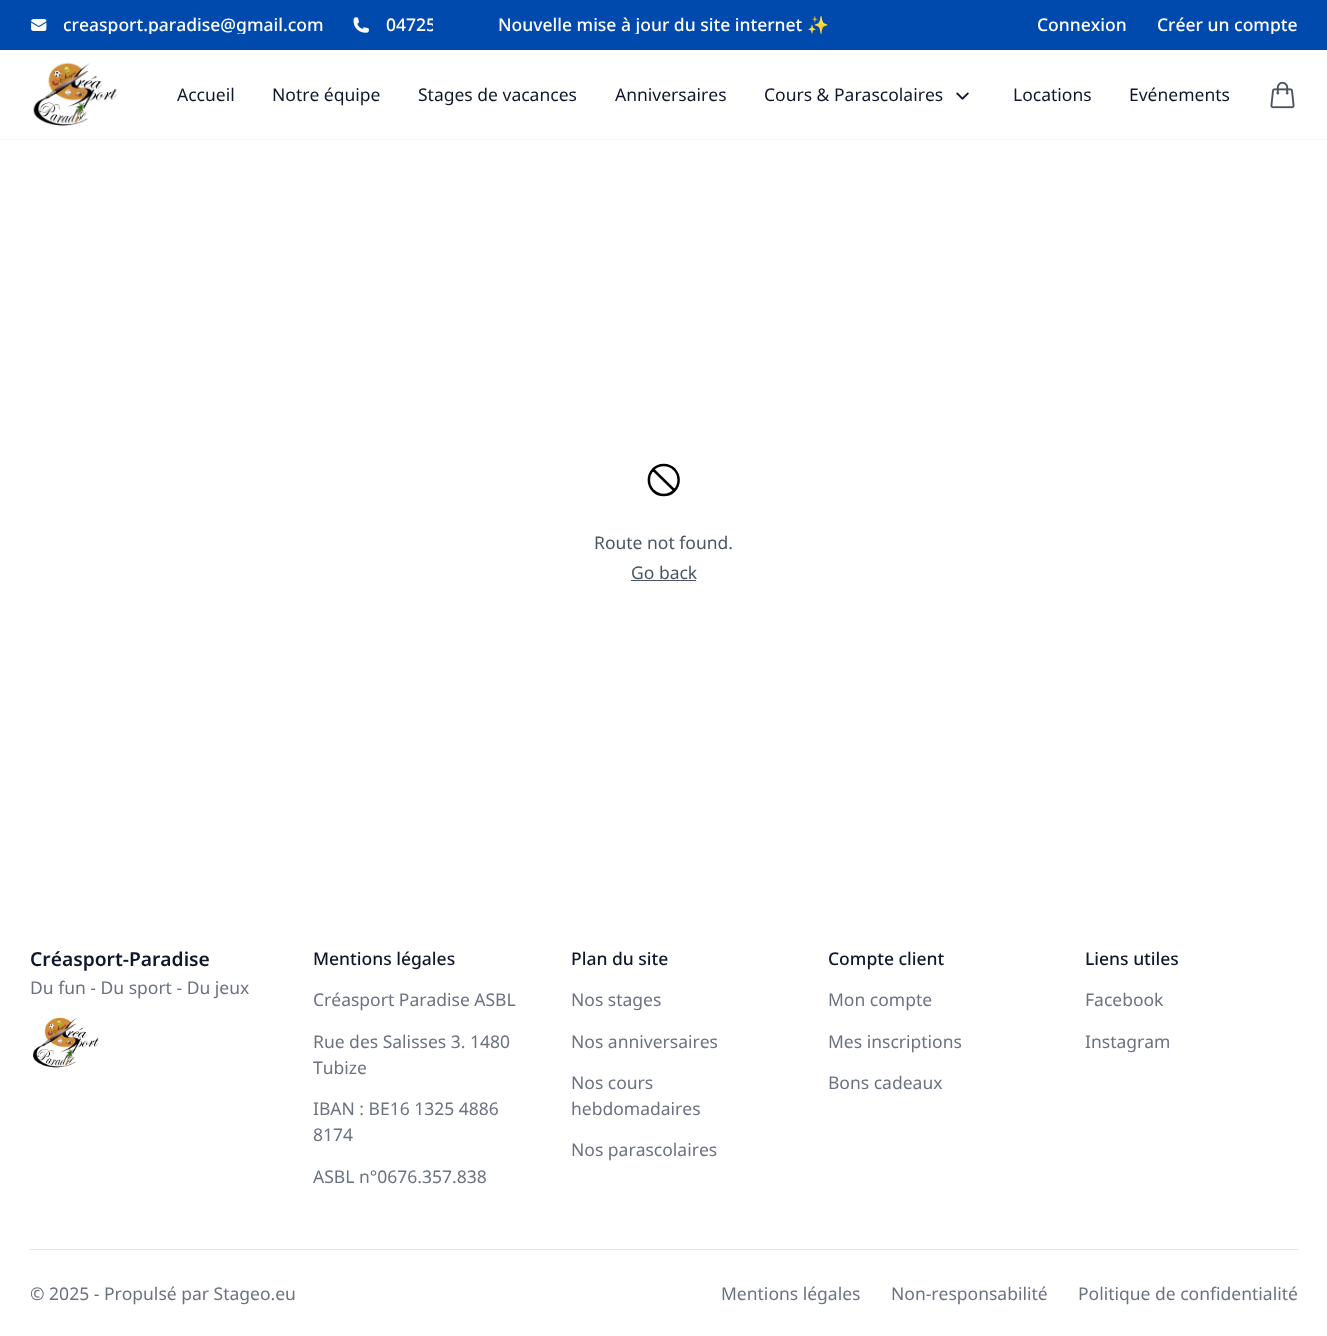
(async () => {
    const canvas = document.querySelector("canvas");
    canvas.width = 1327;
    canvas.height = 1336;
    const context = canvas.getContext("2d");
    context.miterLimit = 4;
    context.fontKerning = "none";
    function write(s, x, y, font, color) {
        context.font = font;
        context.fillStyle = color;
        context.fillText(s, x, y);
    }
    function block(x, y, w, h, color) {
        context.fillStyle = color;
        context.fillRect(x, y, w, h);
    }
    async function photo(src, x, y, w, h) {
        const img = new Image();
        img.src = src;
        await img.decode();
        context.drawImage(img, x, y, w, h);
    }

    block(0, 0, 1327, 1336, "rgb(255, 255, 255)");
    block(0, 0, 1327, 50, "rgb(0, 74, 173)");
    await photo("media/1.png", 31, 19, 16, 12);
    context.save();
    context.beginPath();
    context.rect(30, 16, 403, 18);
    context.clip();
    write("creasport.paradise@gmail.com", 63, 31, "500 17.5px Noto Sans", "rgb(255, 255, 255)");
    context.restore();
    await photo("media/2.png", 353, 17, 16, 16);
    context.save();
    context.beginPath();
    context.rect(30, 16, 403, 18);
    context.clip();
    write("04725", 386, 31, "500 17.5px Noto Sans", "rgb(255, 255, 255)");
    context.restore();
    context.save();
    context.beginPath();
    context.rect(499, 16, 330, 18);
    context.clip();
    write("Nouvelle mise à jour du site internet", 498, 31, "500 17.5px Noto Sans", "rgb(255, 255, 255)");
    write("✨", 807, 31, "17.5px Noto Color Emoji", "rgb(255, 255, 255)");
    context.restore();
    write("Connexion", 1037, 31, "500 17.5px Noto Sans", "rgb(255, 255, 255)");
    context.save();
    context.beginPath();
    context.rect(895, 16, 403, 18);
    context.clip();
    write("Créer un compte", 1157, 31, "500 17.5px Noto Sans", "rgb(255, 255, 255)");
    context.restore();
    block(0, 139, 1327, 1, "rgb(243, 244, 246)");
    await photo("media/3.png", 33, 62, 84, 64);
    write("Accueil", 177, 101, "17.5px Noto Sans", "rgb(15, 23, 42)");
    write("Notre équipe", 272, 101, "17.5px Noto Sans", "rgb(15, 23, 42)");
    write("Stages de vacances", 418, 101, "17.5px Noto Sans", "rgb(15, 23, 42)");
    write("Anniversaires", 615, 101, "17.5px Noto Sans", "rgb(15, 23, 42)");
    write("Cours & Parascolaires", 764, 101, "17.5px Noto Sans", "rgb(15, 23, 42)");
    await photo("media/4.png", 956, 92, 13, 8);
    write("Locations", 1013, 101, "17.5px Noto Sans", "rgb(15, 23, 42)");
    write("Evénements", 1129, 101, "17.5px Noto Sans", "rgb(15, 23, 42)");
    await photo("media/5.png", 1270, 81, 25, 28);
    context.beginPath();
    context.moveTo(674.5, 490.5);
    context.bezierCurveTo(680, 484.5, 680, 475.5, 674.5, 469.5);
    context.bezierCurveTo(668.5, 463.5, 659, 463.5, 653, 469.5);
    context.moveTo(674.5, 490.5);
    context.bezierCurveTo(668.5, 496.5, 659, 496.5, 653, 490.5);
    context.bezierCurveTo(647.5, 484.5, 647.5, 475.5, 653, 469.5);
    context.moveTo(674.5, 490.5);
    context.lineTo(653, 469.5);
    context.strokeStyle = "rgb(0, 0, 0)";
    context.lineWidth = 2.5;
    context.lineCap = "round";
    context.lineJoin = "round";
    context.stroke();
    write("Route not found.", 594, 549, "17.5px Noto Sans", "rgb(75, 85, 99)");
    write("Go back", 631, 579, "17.5px Noto Sans", "rgb(75, 85, 99)");
    block(631, 580, 65, 1, "rgb(75, 85, 99)");
    write("Créasport-Paradise", 30, 966, "600 19.25px Noto Sans", "rgb(15, 23, 42)");
    write("Du fun - Du sport - Du jeux", 30, 994, "17.5px Noto Sans", "rgb(107, 114, 128)");
    await photo("media/6.png", 33, 1017, 66, 51);
    write("Mentions légales", 313, 965, "500 17.5px Noto Sans", "rgb(15, 23, 42)");
    write("Créasport Paradise ASBL", 313, 1006, "17.5px Noto Sans", "rgb(107, 114, 128)");
    write("Rue des Salisses 3. 1480", 313, 1048, "17.5px Noto Sans", "rgb(107, 114, 128)");
    write("Tubize", 313, 1074, "17.5px Noto Sans", "rgb(107, 114, 128)");
    write("IBAN : BE16 1325 4886", 313, 1115, "17.5px Noto Sans", "rgb(107, 114, 128)");
    write("8174", 313, 1141, "17.5px Noto Sans", "rgb(107, 114, 128)");
    write("ASBL n°0676.357.838", 313, 1183, "17.5px Noto Sans", "rgb(107, 114, 128)");
    write("Plan du site", 571, 965, "500 17.5px Noto Sans", "rgb(15, 23, 42)");
    write("Nos stages", 571, 1006, "17.5px Noto Sans", "rgb(107, 114, 128)");
    write("Nos anniversaires", 571, 1048, "17.5px Noto Sans", "rgb(107, 114, 128)");
    write("Nos cours", 571, 1089, "17.5px Noto Sans", "rgb(107, 114, 128)");
    write("hebdomadaires", 571, 1115, "17.5px Noto Sans", "rgb(107, 114, 128)");
    write("Nos parascolaires", 571, 1156, "17.5px Noto Sans", "rgb(107, 114, 128)");
    write("Compte client", 828, 965, "500 17.5px Noto Sans", "rgb(15, 23, 42)");
    write("Mon compte", 828, 1006, "17.5px Noto Sans", "rgb(107, 114, 128)");
    write("Mes inscriptions", 828, 1048, "17.5px Noto Sans", "rgb(107, 114, 128)");
    write("Bons cadeaux", 828, 1089, "17.5px Noto Sans", "rgb(107, 114, 128)");
    write("Liens utiles", 1085, 965, "500 17.5px Noto Sans", "rgb(15, 23, 42)");
    write("Facebook", 1085, 1006, "17.5px Noto Sans", "rgb(107, 114, 128)");
    write("Instagram", 1085, 1048, "17.5px Noto Sans", "rgb(107, 114, 128)");
    block(30, 1249, 1268, 1, "rgb(229, 231, 235)");
    write("© 2025 - Propulsé par Stageo.eu", 30, 1300, "17.5px Noto Sans", "rgb(107, 114, 128)");
    write("Mentions légales", 721, 1300, "17.5px Noto Sans", "rgb(107, 114, 128)");
    write("Non-responsabilité", 891, 1300, "17.5px Noto Sans", "rgb(107, 114, 128)");
    write("Politique de confidentialité", 1078, 1300, "17.5px Noto Sans", "rgb(107, 114, 128)");
})();
